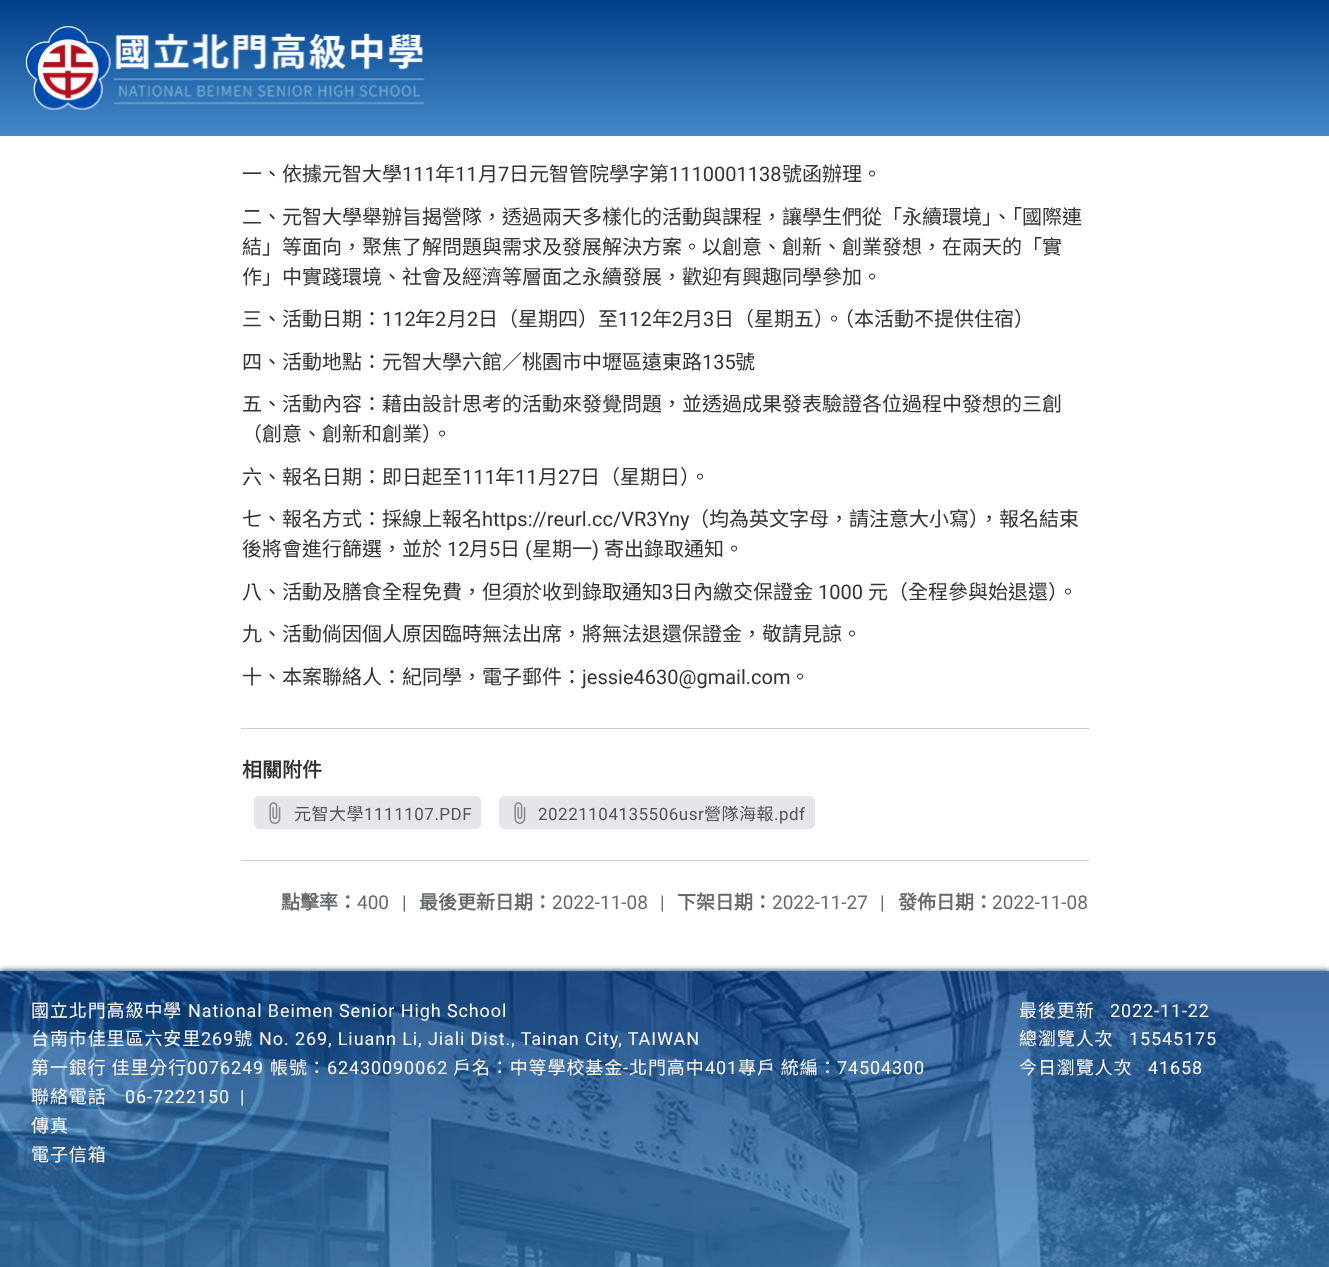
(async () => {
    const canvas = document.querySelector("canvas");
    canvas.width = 1329;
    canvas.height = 1267;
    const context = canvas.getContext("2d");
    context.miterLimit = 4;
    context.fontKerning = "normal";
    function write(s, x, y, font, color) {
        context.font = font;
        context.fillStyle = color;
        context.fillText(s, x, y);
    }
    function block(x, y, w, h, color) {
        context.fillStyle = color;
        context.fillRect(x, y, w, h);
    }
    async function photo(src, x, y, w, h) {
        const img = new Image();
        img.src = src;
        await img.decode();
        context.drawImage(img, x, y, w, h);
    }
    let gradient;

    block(0, 0, 1329, 1267, "rgb(255, 255, 255)");
    gradient = context.createLinearGradient(665, 0, 665, 136);
    gradient.addColorStop(0, "rgb(0, 64, 138)");
    gradient.addColorStop(1, "rgb(68, 138, 202)");
    context.fillStyle = gradient;
    context.fillRect(0, 0, 1329, 136);
    await photo("media/1.png", 25, 26, 400, 84);
    write("一、依據元智大學", 242, 181, "20px Noto Sans CJK TC", "rgb(51, 51, 51)");
    write("111", 402, 181, "20px Roboto", "rgb(51, 51, 51)");
    write("年", 435, 181, "20px Noto Sans CJK TC", "rgb(51, 51, 51)");
    write("11", 455, 181, "20px Roboto", "rgb(51, 51, 51)");
    write("月", 478, 181, "20px Noto Sans CJK TC", "rgb(51, 51, 51)");
    write("7", 498, 181, "20px Roboto", "rgb(51, 51, 51)");
    write("日元智管院學字第", 509, 181, "20px Noto Sans CJK TC", "rgb(51, 51, 51)");
    write("1110001138", 669, 181, "20px Roboto", "rgb(51, 51, 51)");
    write("號函辦理。", 782, 181, "20px Noto Sans CJK TC", "rgb(51, 51, 51)");
    write("二、元智大學舉辦旨揭營隊，透過兩天多樣化的活動與課程，讓學生們從「永續環境」、「國際連", 242, 224, "20px Noto Sans CJK TC", "rgb(51, 51, 51)");
    write("結」等面向，聚焦了解問題與需求及發展解決方案。以創意、創新、創業發想，在兩天的「實", 242, 254, "20px Noto Sans CJK TC", "rgb(51, 51, 51)");
    write("作」中實踐環境、社會及經濟等層面之永續發展，歡迎有興趣同學參加。", 242, 284, "20px Noto Sans CJK TC", "rgb(51, 51, 51)");
    write("三、活動日期：", 242, 326, "20px Noto Sans CJK TC", "rgb(51, 51, 51)");
    write("112", 382, 326, "20px Roboto", "rgb(51, 51, 51)");
    write("年", 415, 326, "20px Noto Sans CJK TC", "rgb(51, 51, 51)");
    write("2", 435, 326, "20px Roboto", "rgb(51, 51, 51)");
    write("月", 447, 326, "20px Noto Sans CJK TC", "rgb(51, 51, 51)");
    write("2", 467, 326, "20px Roboto", "rgb(51, 51, 51)");
    write("日（星期四）至", 478, 326, "20px Noto Sans CJK TC", "rgb(51, 51, 51)");
    write("112", 618, 326, "20px Roboto", "rgb(51, 51, 51)");
    write("年", 652, 326, "20px Noto Sans CJK TC", "rgb(51, 51, 51)");
    write("2", 672, 326, "20px Roboto", "rgb(51, 51, 51)");
    write("月", 683, 326, "20px Noto Sans CJK TC", "rgb(51, 51, 51)");
    write("3", 703, 326, "20px Roboto", "rgb(51, 51, 51)");
    write("日（星期五）。（本活動不提供住宿）", 714, 326, "20px Noto Sans CJK TC", "rgb(51, 51, 51)");
    write("四、活動地點：元智大學六館／桃園市中壢區遠東路", 242, 369, "20px Noto Sans CJK TC", "rgb(51, 51, 51)");
    write("135", 702, 369, "20px Roboto", "rgb(51, 51, 51)");
    write("號", 735, 369, "20px Noto Sans CJK TC", "rgb(51, 51, 51)");
    write("五、活動內容：藉由設計思考的活動來發覺問題，並透過成果發表驗證各位過程中發想的三創", 242, 411, "20px Noto Sans CJK TC", "rgb(51, 51, 51)");
    write("（創意、創新和創業）。", 242, 441, "20px Noto Sans CJK TC", "rgb(51, 51, 51)");
    write("六、報名日期：即日起至", 242, 484, "20px Noto Sans CJK TC", "rgb(51, 51, 51)");
    write("111", 462, 484, "20px Roboto", "rgb(51, 51, 51)");
    write("年", 495, 484, "20px Noto Sans CJK TC", "rgb(51, 51, 51)");
    write("11", 515, 484, "20px Roboto", "rgb(51, 51, 51)");
    write("月", 538, 484, "20px Noto Sans CJK TC", "rgb(51, 51, 51)");
    write("27", 558, 484, "20px Roboto", "rgb(51, 51, 51)");
    write("日（星期日）。", 580, 484, "20px Noto Sans CJK TC", "rgb(51, 51, 51)");
    write("七、報名方式：採線上報名", 242, 526, "20px Noto Sans CJK TC", "rgb(51, 51, 51)");
    write("https://reurl.cc/VR3Yny", 482, 526, "20px Roboto", "rgb(51, 51, 51)");
    write("（均為英文字母，請注意大小寫），報名結束", 689, 526, "20px Noto Sans CJK TC", "rgb(51, 51, 51)");
    write("後將會進行篩選，並於", 242, 556, "20px Noto Sans CJK TC", "rgb(51, 51, 51)");
    write("12", 447, 556, "20px Roboto", "rgb(51, 51, 51)");
    write("月", 469, 556, "20px Noto Sans CJK TC", "rgb(51, 51, 51)");
    write("5", 489, 556, "20px Roboto", "rgb(51, 51, 51)");
    write("日", 500, 556, "20px Noto Sans CJK TC", "rgb(51, 51, 51)");
    write("(", 525, 556, "20px Roboto", "rgb(51, 51, 51)");
    write("星期一", 532, 556, "20px Noto Sans CJK TC", "rgb(51, 51, 51)");
    write(")", 592, 556, "20px Roboto", "rgb(51, 51, 51)");
    write("寄出錄取通知。", 604, 556, "20px Noto Sans CJK TC", "rgb(51, 51, 51)");
    write("八、活動及膳食全程免費，但須於收到錄取通知", 242, 599, "20px Noto Sans CJK TC", "rgb(51, 51, 51)");
    write("3", 662, 599, "20px Roboto", "rgb(51, 51, 51)");
    write("日內繳交保證金", 673, 599, "20px Noto Sans CJK TC", "rgb(51, 51, 51)");
    write("1000", 818, 599, "20px Roboto", "rgb(51, 51, 51)");
    write("元（全程參與始退還）。", 868, 599, "20px Noto Sans CJK TC", "rgb(51, 51, 51)");
    write("九、活動倘因個人原因臨時無法出席，將無法退還保證金，敬請見諒。", 242, 641, "20px Noto Sans CJK TC", "rgb(51, 51, 51)");
    write("十、本案聯絡人：紀同學，電子郵件：", 242, 684, "20px Noto Sans CJK TC", "rgb(51, 51, 51)");
    write("jessie4630@gmail.com", 582, 684, "20px Roboto", "rgb(51, 51, 51)");
    write("。", 790, 684, "20px Noto Sans CJK TC", "rgb(51, 51, 51)");
    block(241, 728, 848, 1, "rgb(204, 204, 204)");
    write("相關附件", 242, 777, "bold 20px Noto Sans CJK TC", "rgb(51, 51, 51)");
    context.fillStyle = "rgb(229, 230, 233)";
    context.beginPath();
    context.roundRect(254.5, 796.5, 226, 32, 4.5);
    context.fill();
    context.strokeStyle = "rgb(229, 230, 233)";
    context.stroke();
    await photo("media/2.png", 269, 802, 12, 22);
    context.letterSpacing = "0.5px";
    write("元智大學", 294, 820, "17px Noto Sans CJK TC", "rgb(85, 85, 85)");
    write("1111107.PDF", 364, 820, "17px Roboto", "rgb(85, 85, 85)");
    context.fillStyle = "rgb(229, 230, 233)";
    context.beginPath();
    context.roundRect(499.5, 796.5, 315, 32, 4.5);
    context.fill();
    context.stroke();
    await photo("media/2.png", 514, 802, 12, 22);
    write("20221104135506usr", 538, 820, "17px Roboto", "rgb(85, 85, 85)");
    write("營隊海報", 704, 820, "17px Noto Sans CJK TC", "rgb(85, 85, 85)");
    write(".pdf", 774, 820, "17px Roboto", "rgb(85, 85, 85)");
    block(241, 860, 848, 1, "rgb(204, 204, 204)");
    context.letterSpacing = "0px";
    write("點擊率：", 281, 909, "bold 19px Noto Sans CJK TC", "rgb(103, 106, 108)");
    write("400", 357, 909, "19px Roboto", "rgb(103, 106, 108)");
    write("|", 402, 909, "19px Roboto", "rgb(103, 106, 108)");
    write("最後更新日期：", 419, 909, "bold 19px Noto Sans CJK TC", "rgb(103, 106, 108)");
    write("2022-11-08", 552, 909, "19px Roboto", "rgb(103, 106, 108)");
    write("|", 660, 909, "19px Roboto", "rgb(103, 106, 108)");
    write("下架日期：", 677, 909, "bold 19px Noto Sans CJK TC", "rgb(103, 106, 108)");
    write("2022-11-27", 772, 909, "19px Roboto", "rgb(103, 106, 108)");
    write("|", 880, 909, "19px Roboto", "rgb(103, 106, 108)");
    write("發佈日期：", 898, 909, "bold 19px Noto Sans CJK TC", "rgb(103, 106, 108)");
    write("2022-11-08", 992, 909, "19px Roboto", "rgb(103, 106, 108)");
    context.fillStyle = "rgb(0, 40, 64)";
    context.filter = "blur(3px)";
    context.beginPath();
    context.rect(0, 971, 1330, 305);
    context.fill();
    context.filter = "none";
    await photo("media/3.png", 0, 971, 1329, 296);
    context.letterSpacing = "0.9px";
    write("國立北門高級中學", 31, 1017, "18px Noto Sans CJK TC", "rgb(255, 249, 246)");
    write("National Beimen Senior High School", 188, 1017, "18px Roboto", "rgb(255, 249, 246)");
    write("台南市佳里區六安里", 31, 1045, "18px Noto Sans CJK TC", "rgb(255, 249, 246)");
    write("269", 201, 1045, "18px Roboto", "rgb(255, 249, 246)");
    write("號", 234, 1045, "18px Noto Sans CJK TC", "rgb(255, 249, 246)");
    write("No. 269, Liuann Li, Jiali Dist., Tainan City, TAIWAN", 259, 1045, "18px Roboto", "rgb(255, 249, 246)");
    write("第一銀行 佳里分行", 31, 1074, "18px Noto Sans CJK TC", "rgb(255, 249, 246)");
    write("0076249", 187, 1074, "18px Roboto", "rgb(255, 249, 246)");
    write("帳號：", 270, 1074, "18px Noto Sans CJK TC", "rgb(255, 249, 246)");
    write("62430090062", 327, 1074, "18px Roboto", "rgb(255, 249, 246)");
    write("戶名：中等學校基金", 453, 1074, "18px Noto Sans CJK TC", "rgb(255, 249, 246)");
    write("-", 623, 1074, "18px Roboto", "rgb(255, 249, 246)");
    write("北門高中", 629, 1074, "18px Noto Sans CJK TC", "rgb(255, 249, 246)");
    write("401", 705, 1074, "18px Roboto", "rgb(255, 249, 246)");
    write("專戶 統編：", 738, 1074, "18px Noto Sans CJK TC", "rgb(255, 249, 246)");
    write("74504300", 837, 1074, "18px Roboto", "rgb(255, 249, 246)");
    write("聯絡電話", 31, 1103, "18px Noto Sans CJK TC", "rgb(255, 249, 246)");
    write("06-7222150", 125, 1103, "18px Roboto", "rgb(255, 249, 246)");
    write("|", 240, 1103, "18px Roboto", "rgb(255, 249, 246)");
    write("傳真", 31, 1132, "18px Noto Sans CJK TC", "rgb(255, 249, 246)");
    write("電子信箱", 31, 1161, "18px Noto Sans CJK TC", "rgb(255, 249, 246)");
    write("最後更新", 1019, 1017, "18px Noto Sans CJK TC", "rgb(255, 249, 246)");
    write("2022-11-22", 1110, 1017, "18px Roboto", "rgb(255, 249, 246)");
    write("總瀏覽人次", 1019, 1045, "18px Noto Sans CJK TC", "rgb(255, 249, 246)");
    write("15545175", 1129, 1045, "18px Roboto", "rgb(255, 249, 246)");
    write("今日瀏覽人次", 1019, 1074, "18px Noto Sans CJK TC", "rgb(255, 249, 246)");
    write("41658", 1148, 1074, "18px Roboto", "rgb(255, 249, 246)");
})();
